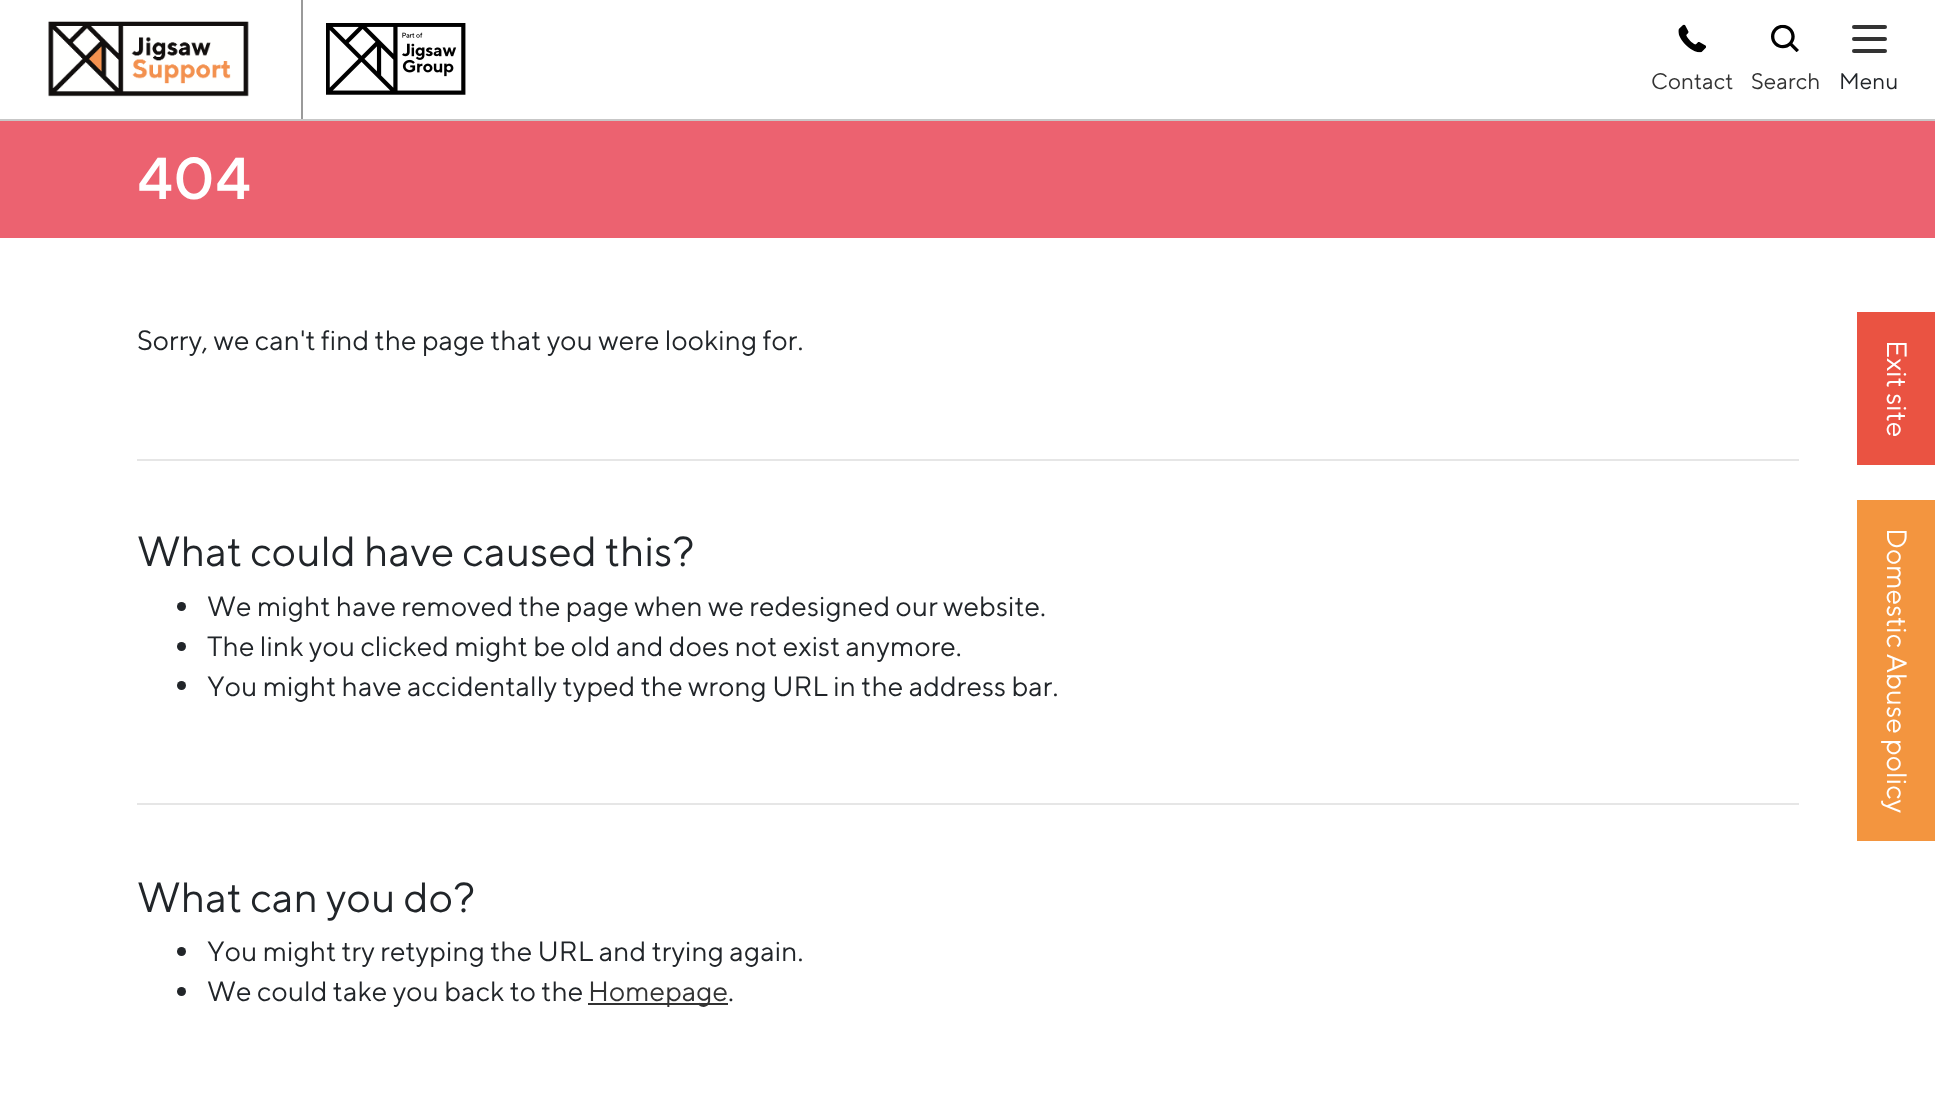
(async () => {
    const canvas = document.querySelector("canvas");
    canvas.width = 1935;
    canvas.height = 1118;
    const context = canvas.getContext("2d");
    context.miterLimit = 4;
    context.fontKerning = "normal";
    function write(s, x, y, font, color) {
        context.font = font;
        context.fillStyle = color;
        context.fillText(s, x, y);
    }
    function block(x, y, w, h, color) {
        context.fillStyle = color;
        context.fillRect(x, y, w, h);
    }
    function card(x, y, w, h, r, color) {
        context.fillStyle = color;
        context.beginPath();
        context.roundRect(x, y, w, h, r);
        context.fill();
    }
    async function photo(src, x, y, w, h) {
        const img = new Image();
        img.src = src;
        await img.decode();
        context.drawImage(img, x, y, w, h);
    }

    block(0, 0, 1935, 1118, "rgb(255, 255, 255)");
    block(0, 119, 1935, 2, "rgb(199, 199, 199)");
    await photo("media/1.png", 48, 21, 201, 76);
    block(301, 0, 2, 119, "rgb(154, 154, 154)");
    await photo("media/2.png", 326, 23, 140, 72);
    await photo("media/3.png", 1678, 24, 28, 29);
    write("Contact", 1651, 89, "22.5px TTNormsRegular", "rgb(51, 51, 51)");
    await photo("media/4.png", 1771, 24, 28, 28);
    write("Search", 1751, 89, "22.5px TTNormsRegular", "rgb(51, 51, 51)");
    card(1852, 25, 35, 4, 2, "rgb(51, 51, 51)");
    card(1852, 37, 35, 4, 2, "rgb(51, 51, 51)");
    card(1852, 49, 35, 4, 2, "rgb(51, 51, 51)");
    write("Menu", 1839, 89, "22.5px TTNormsRegular", "rgb(33, 37, 41)");
    block(0, 121, 1935, 117, "rgb(236, 98, 112)");
    write("404", 137, 199, "59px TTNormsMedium", "rgb(255, 255, 255)");
    write("Sorry, we can't find the page that you were looking for.", 137, 350, "28px TTNormsRegular", "rgb(33, 37, 41)");
    block(137, 459, 1662, 2, "rgb(230, 230, 230)");
    write("What could have caused this?", 137, 566, "42px TTNormsRegular", "rgb(33, 37, 41)");
    context.beginPath();
    context.arc(181.5, 606.5, 4.5, 0, Math.PI * 2);
    context.fill();
    write("We might have removed the page when we redesigned our website.", 207, 616, "28px TTNormsRegular", "rgb(33, 37, 41)");
    context.beginPath();
    context.arc(181.5, 646.5, 4.5, 0, Math.PI * 2);
    context.fill();
    write("The link you clicked might be old and does not exist anymore.", 207, 656, "28px TTNormsRegular", "rgb(33, 37, 41)");
    context.beginPath();
    context.arc(181.5, 685.5, 4.5, 0, Math.PI * 2);
    context.fill();
    write("You might have accidentally typed the wrong URL in the address bar.", 207, 696, "28px TTNormsRegular", "rgb(33, 37, 41)");
    block(137, 803, 1662, 2, "rgb(230, 230, 230)");
    write("What can you do?", 137, 912, "42px TTNormsRegular", "rgb(33, 37, 41)");
    context.beginPath();
    context.arc(181.5, 951.5, 4.5, 0, Math.PI * 2);
    context.fill();
    write("You might try retyping the URL and trying again.", 207, 961, "28px TTNormsRegular", "rgb(33, 37, 41)");
    context.beginPath();
    context.arc(181.5, 991.5, 4.5, 0, Math.PI * 2);
    context.fill();
    write("We could take you back to the", 207, 1001, "28px TTNormsRegular", "rgb(33, 37, 41)");
    block(588, 1003, 140, 2, "rgb(51, 51, 51)");
    write("Homepage", 588, 1001, "28px TTNormsRegular", "rgb(51, 51, 51)");
    write(".", 728, 1001, "28px TTNormsRegular", "rgb(33, 37, 41)");
    block(1857, 312, 78, 153, "rgb(234, 83, 66)");
    context.fillStyle = "rgb(255, 255, 255)";
    context.save();
    context.translate(1887, 340);
    context.rotate(90 * Math.PI / 180);
    context.fillText("Exit site", 0, 0);
    context.restore();
    block(1857, 500, 78, 341, "rgb(243, 149, 63)");
    context.fillStyle = "rgb(255, 255, 255)";
    context.save();
    context.translate(1887, 528);
    context.rotate(90 * Math.PI / 180);
    context.fillText("Domestic Abuse policy", 0, 0);
    context.restore();
})();
